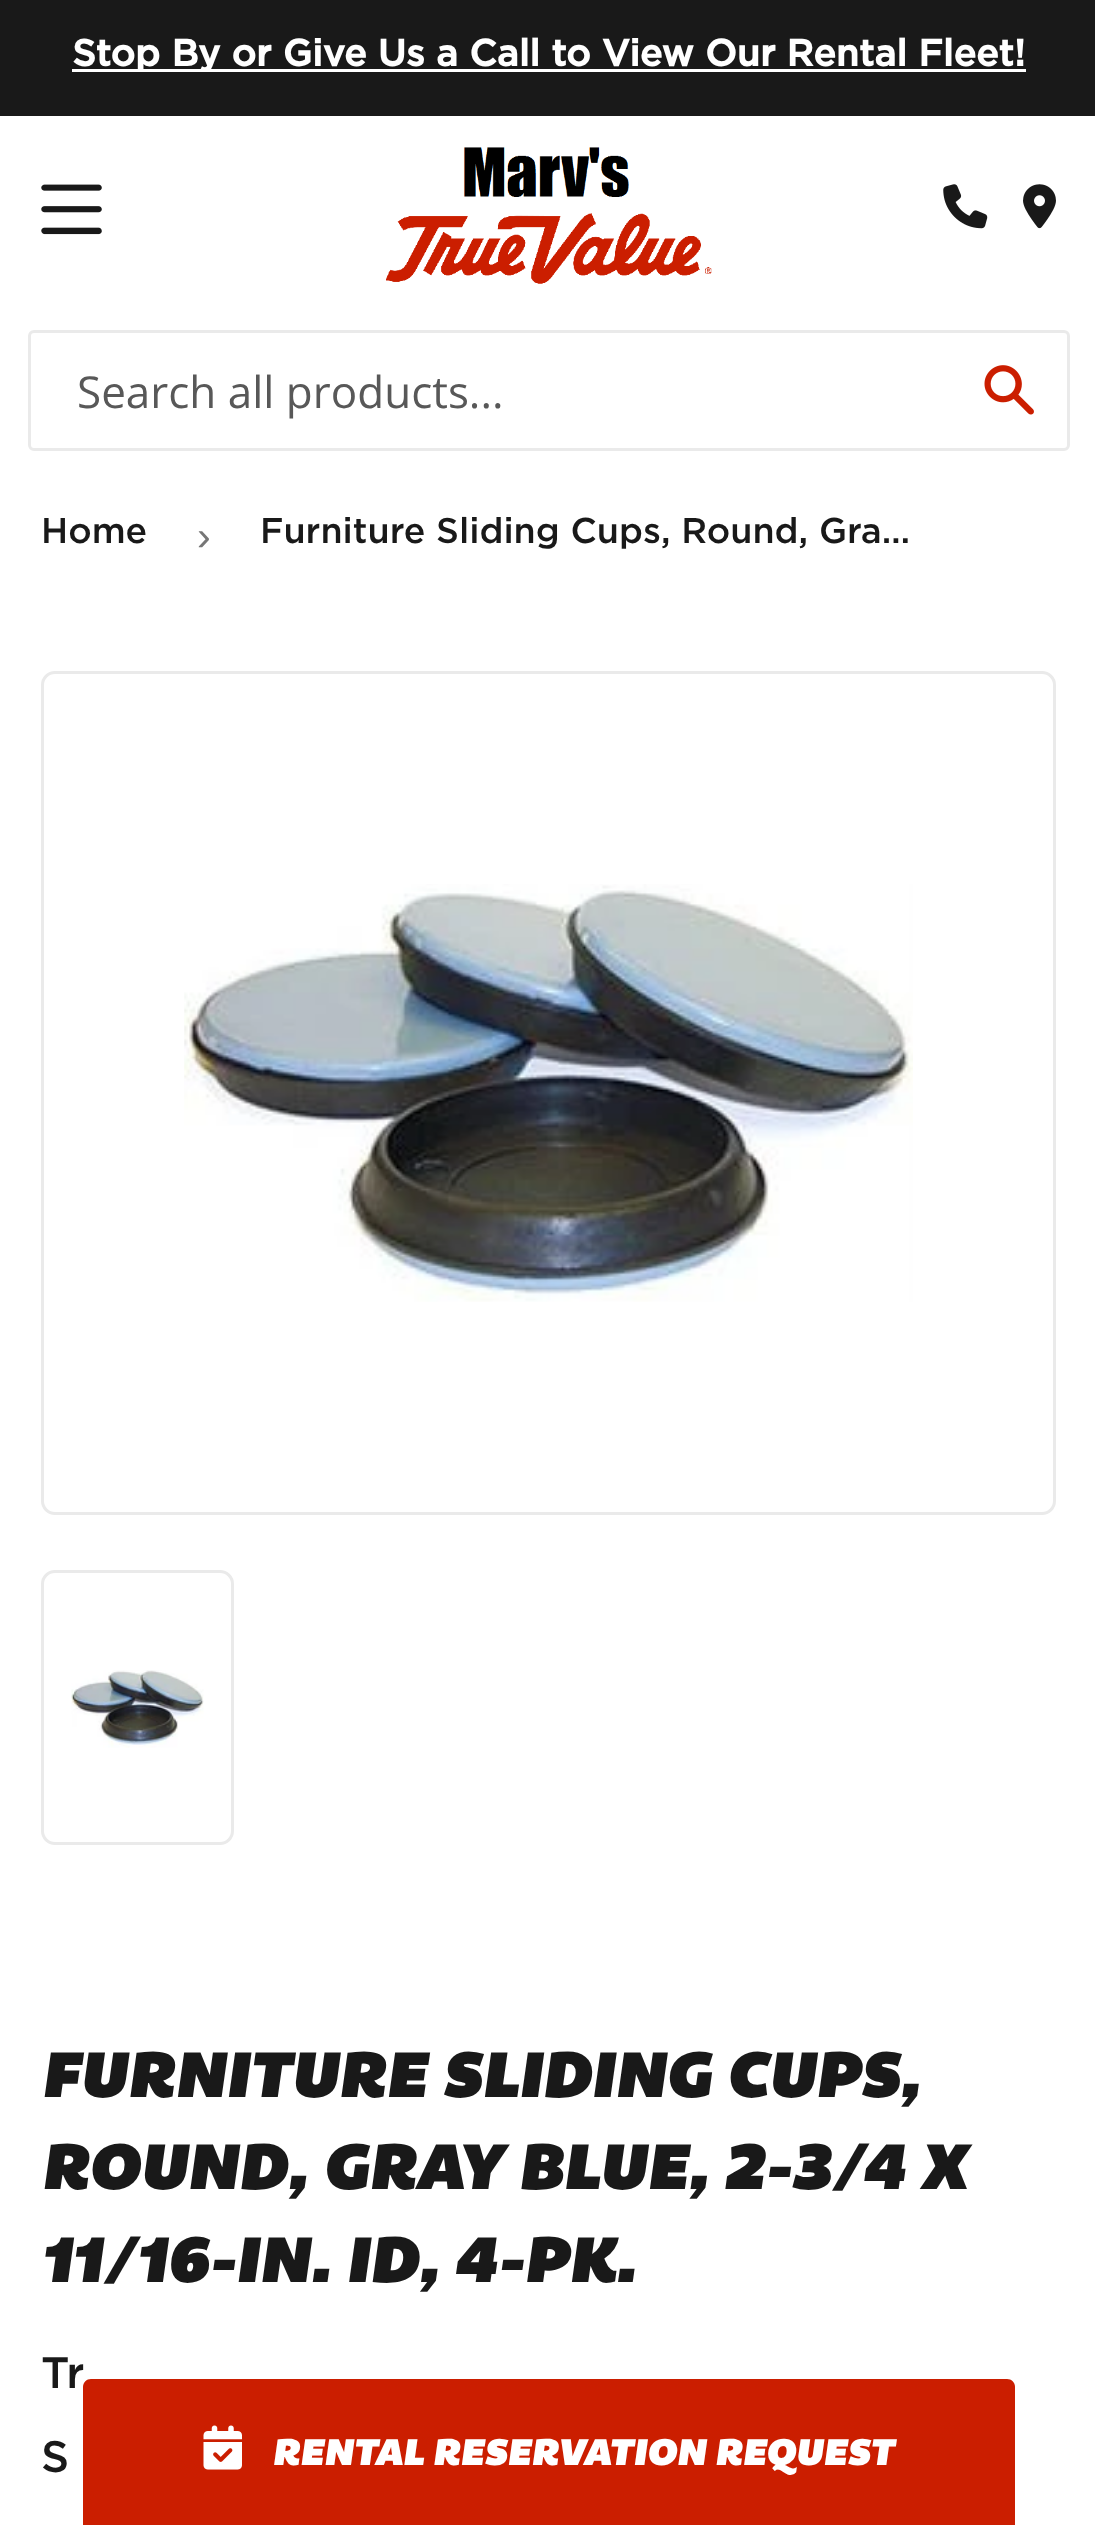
(async () => {
    const canvas = document.querySelector("canvas");
    canvas.width = 1095;
    canvas.height = 2525;
    const context = canvas.getContext("2d");
    context.miterLimit = 4;
    context.fontKerning = "normal";
    function write(s, x, y, font, color) {
        context.font = font;
        context.fillStyle = color;
        context.fillText(s, x, y);
    }
    function block(x, y, w, h, color) {
        context.fillStyle = color;
        context.fillRect(x, y, w, h);
    }
    async function photo(src, x, y, w, h) {
        const img = new Image();
        img.src = src;
        await img.decode();
        context.drawImage(img, x, y, w, h);
    }

    block(0, 0, 1095, 2525, "rgb(255, 255, 255)");
    block(0, 0, 1095, 116, "rgb(25, 25, 25)");
    block(72, 69, 954, 3, "rgb(255, 255, 255)");
    write("Stop By or Give Us a Call to View Our Rental Fleet!", 72, 66, "bold 37.4px Gotham", "rgb(255, 255, 255)");
    await photo("media/1.png", 41, 184, 61, 51);
    await photo("media/2.png", 386, 147, 326, 137);
    await photo("media/3.png", 943, 184, 45, 45);
    await photo("media/4.png", 1023, 184, 33, 45);
    context.beginPath();
    context.roundRect(29.5, 331.5, 1039, 118, 4.5);
    context.strokeStyle = "rgb(234, 234, 234)";
    context.lineWidth = 3;
    context.stroke();
    write("Search all products...", 77, 408, "44px Open Sans", "rgb(88, 88, 88)");
    await photo("media/5.png", 984, 365, 50, 50);
    write("Home", 41, 543, "500 35.75px Gotham", "rgb(25, 25, 25)");
    write("›", 197, 550, "41px Liberation Sans", "rgb(118, 118, 118)");
    write("Furniture Sliding Cups, Round, Gra…", 260, 543, "500 35.75px Gotham", "rgb(25, 25, 25)");
    context.beginPath();
    context.roundRect(42.5, 672.5, 1012, 841, 12.5);
    context.stroke();
    await photo("media/6.png", 184, 884, 729, 418);
    context.beginPath();
    context.roundRect(42.5, 1571.5, 190, 272, 12.5);
    context.stroke();
    await photo("media/7.png", 71, 1670, 133, 78);
    write("FURNITURE SLIDING CUPS,", 41, 2097, "italic 66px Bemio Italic", "rgb(25, 25, 25)");
    write("ROUND, GRAY BLUE, 2-3/4 X", 41, 2189, "italic 66px Bemio Italic", "rgb(25, 25, 25)");
    write("11/16-IN. ID, 4-PK.", 41, 2282, "italic 66px Bemio Italic", "rgb(25, 25, 25)");
    write("Tr", 41, 2388, "500 44px Gotham", "rgb(25, 25, 25)");
    write("S", 41, 2472, "500 44px Gotham", "rgb(25, 25, 25)");
    context.fillStyle = "rgb(203, 30, 0)";
    context.beginPath();
    context.moveTo(91, 2379);
    context.lineTo(1007, 2379);
    context.bezierCurveTo(1011.5, 2379, 1015, 2382.5, 1015, 2387);
    context.lineTo(1015, 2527);
    context.lineTo(83, 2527);
    context.lineTo(83, 2387);
    context.bezierCurveTo(83, 2382.5, 86.5, 2379, 91, 2379);
    context.closePath();
    context.fill();
    await photo("media/8.png", 203, 2425, 39, 45);
    write("RENTAL RESERVATION REQUEST", 272, 2465, "italic 38.25px Bemio Italic", "rgb(255, 255, 255)");
})();
